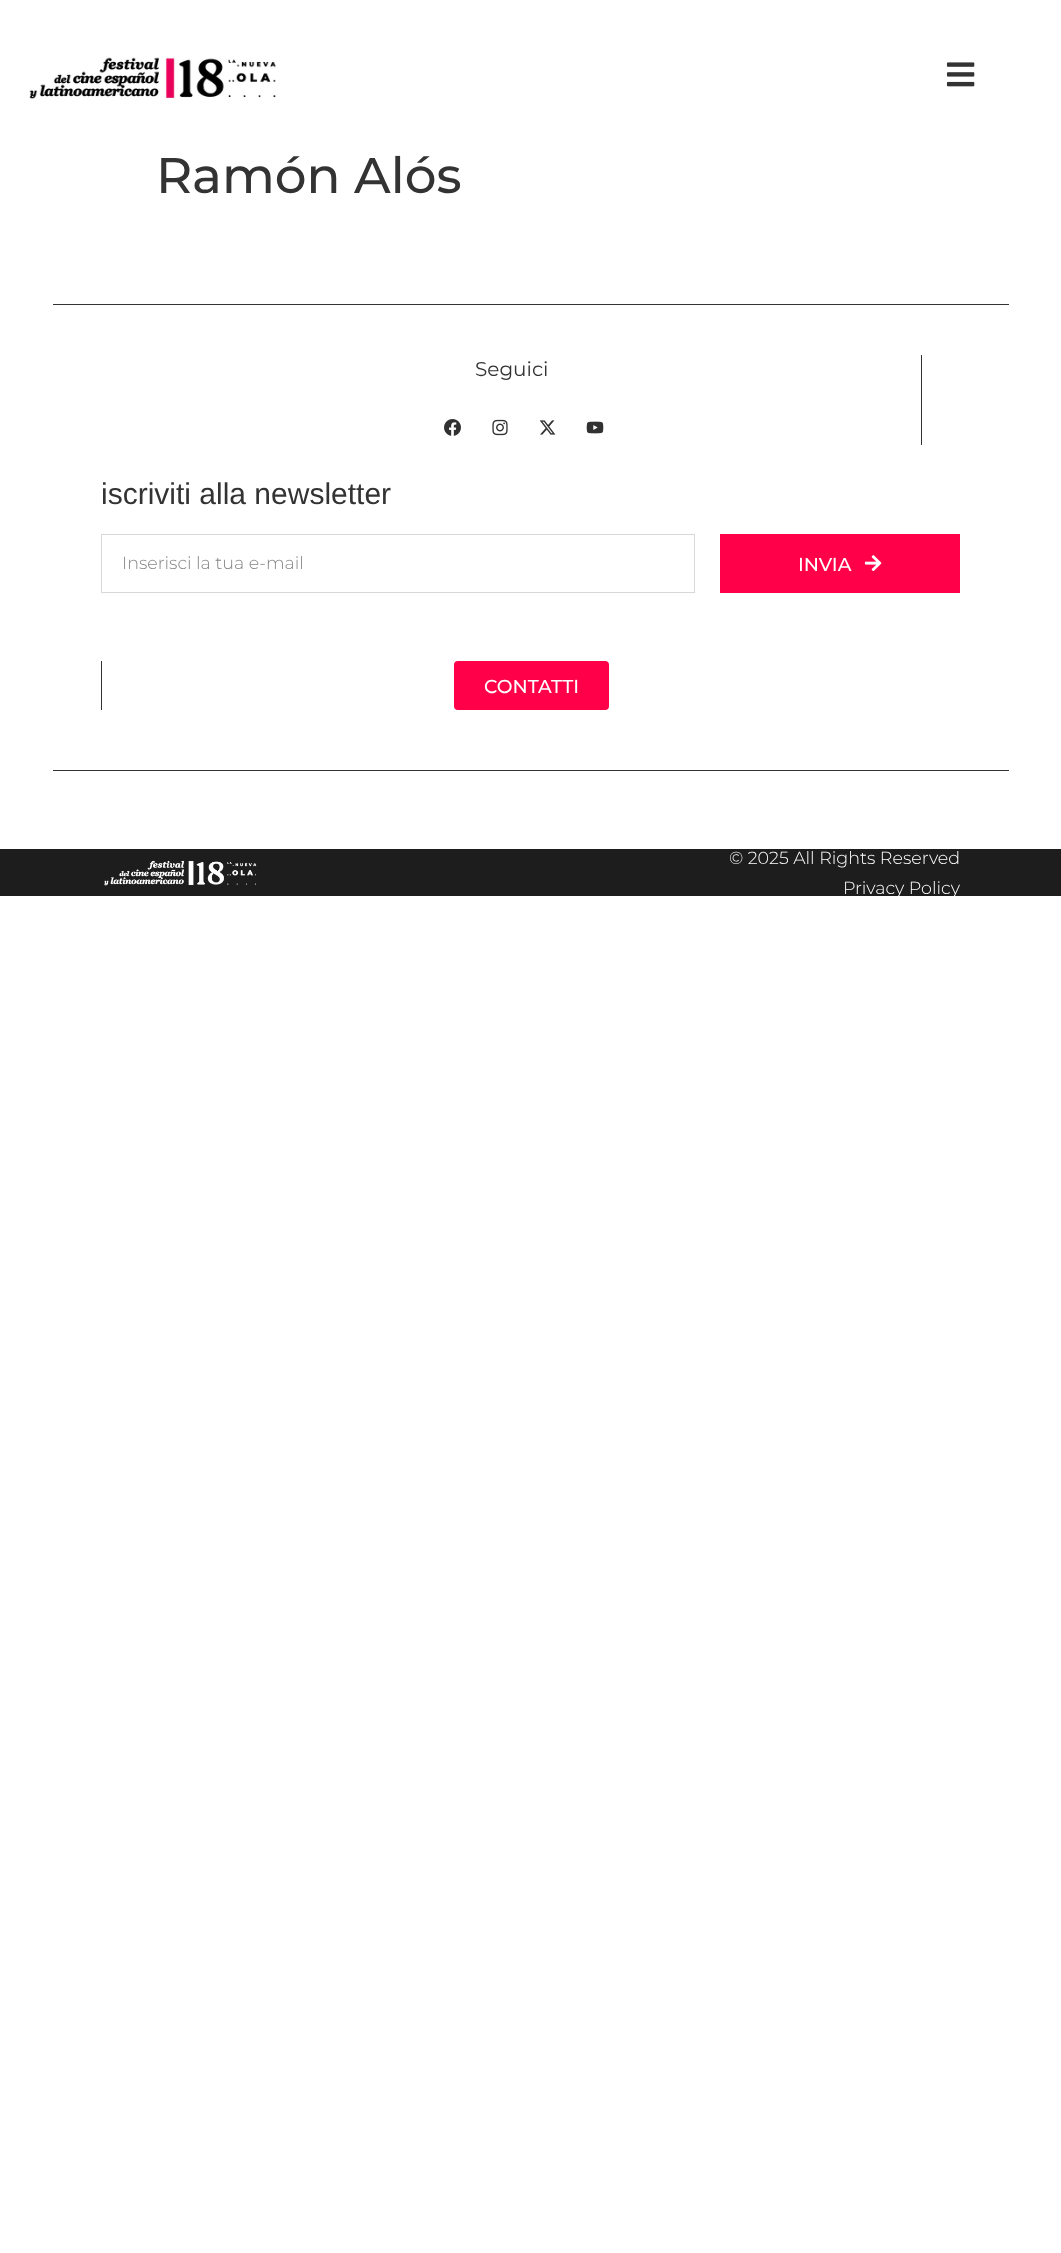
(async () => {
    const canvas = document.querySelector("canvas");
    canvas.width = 1061;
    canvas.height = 2253;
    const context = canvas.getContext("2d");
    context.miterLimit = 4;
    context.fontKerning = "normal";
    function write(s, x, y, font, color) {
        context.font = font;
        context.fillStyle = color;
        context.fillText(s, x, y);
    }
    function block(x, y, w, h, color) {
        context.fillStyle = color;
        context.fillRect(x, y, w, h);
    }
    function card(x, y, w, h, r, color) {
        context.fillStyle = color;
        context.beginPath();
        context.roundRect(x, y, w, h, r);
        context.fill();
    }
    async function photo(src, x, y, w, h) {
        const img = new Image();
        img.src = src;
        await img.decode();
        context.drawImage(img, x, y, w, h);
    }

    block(0, 0, 1061, 2253, "rgb(255, 255, 255)");
    await photo("media/1.png", 29, 57, 247, 42);
    await photo("media/2.png", 946, 62, 29, 25);
    write("Ramón Alós", 156, 193, "500 50px Montserrat", "rgb(51, 51, 51)");
    block(53, 304, 956, 1, "rgb(51, 51, 51)");
    block(921, 355, 1, 90, "rgb(51, 51, 51)");
    write("Seguici", 475, 376, "20px Montserrat", "rgb(51, 51, 51)");
    await photo("media/3.png", 444, 419, 17, 17);
    await photo("media/4.png", 492, 419, 16, 17);
    await photo("media/5.png", 539, 420, 17, 15);
    await photo("media/6.png", 586, 421, 18, 13);
    write("iscriviti alla newsletter", 101, 504, "30px Liberation Sans", "rgb(51, 51, 51)");
    context.strokeStyle = "rgb(216, 216, 216)";
    context.strokeRect(101.5, 534.5, 593, 58);
    write("Inserisci la tua e-mail", 122, 569, "300 17.5px Montserrat", "rgb(134, 134, 134)");
    block(720, 534, 240, 59, "rgb(255, 0, 73)");
    write("INVIA", 798, 571, "500 18.75px Montserrat", "rgb(255, 255, 255)");
    await photo("media/7.png", 864, 555, 18, 17);
    block(101, 661, 1, 49, "rgb(51, 51, 51)");
    card(454, 661, 155, 49, 4, "rgb(255, 0, 73)");
    write("CONTATTI", 484, 693, "500 18.75px Montserrat", "rgb(255, 255, 255)");
    block(53, 770, 956, 1, "rgb(51, 51, 51)");
    block(0, 849, 1061, 47, "rgb(29, 29, 29)");
    await photo("media/8.png", 104, 860, 153, 26);
    write("© 2025 All Rights Reserved", 729, 864, "300 17.5px Montserrat", "rgb(255, 255, 255)");
    write("Privacy Policy", 843, 894, "300 17.5px Montserrat", "rgb(255, 255, 255)");
})();
